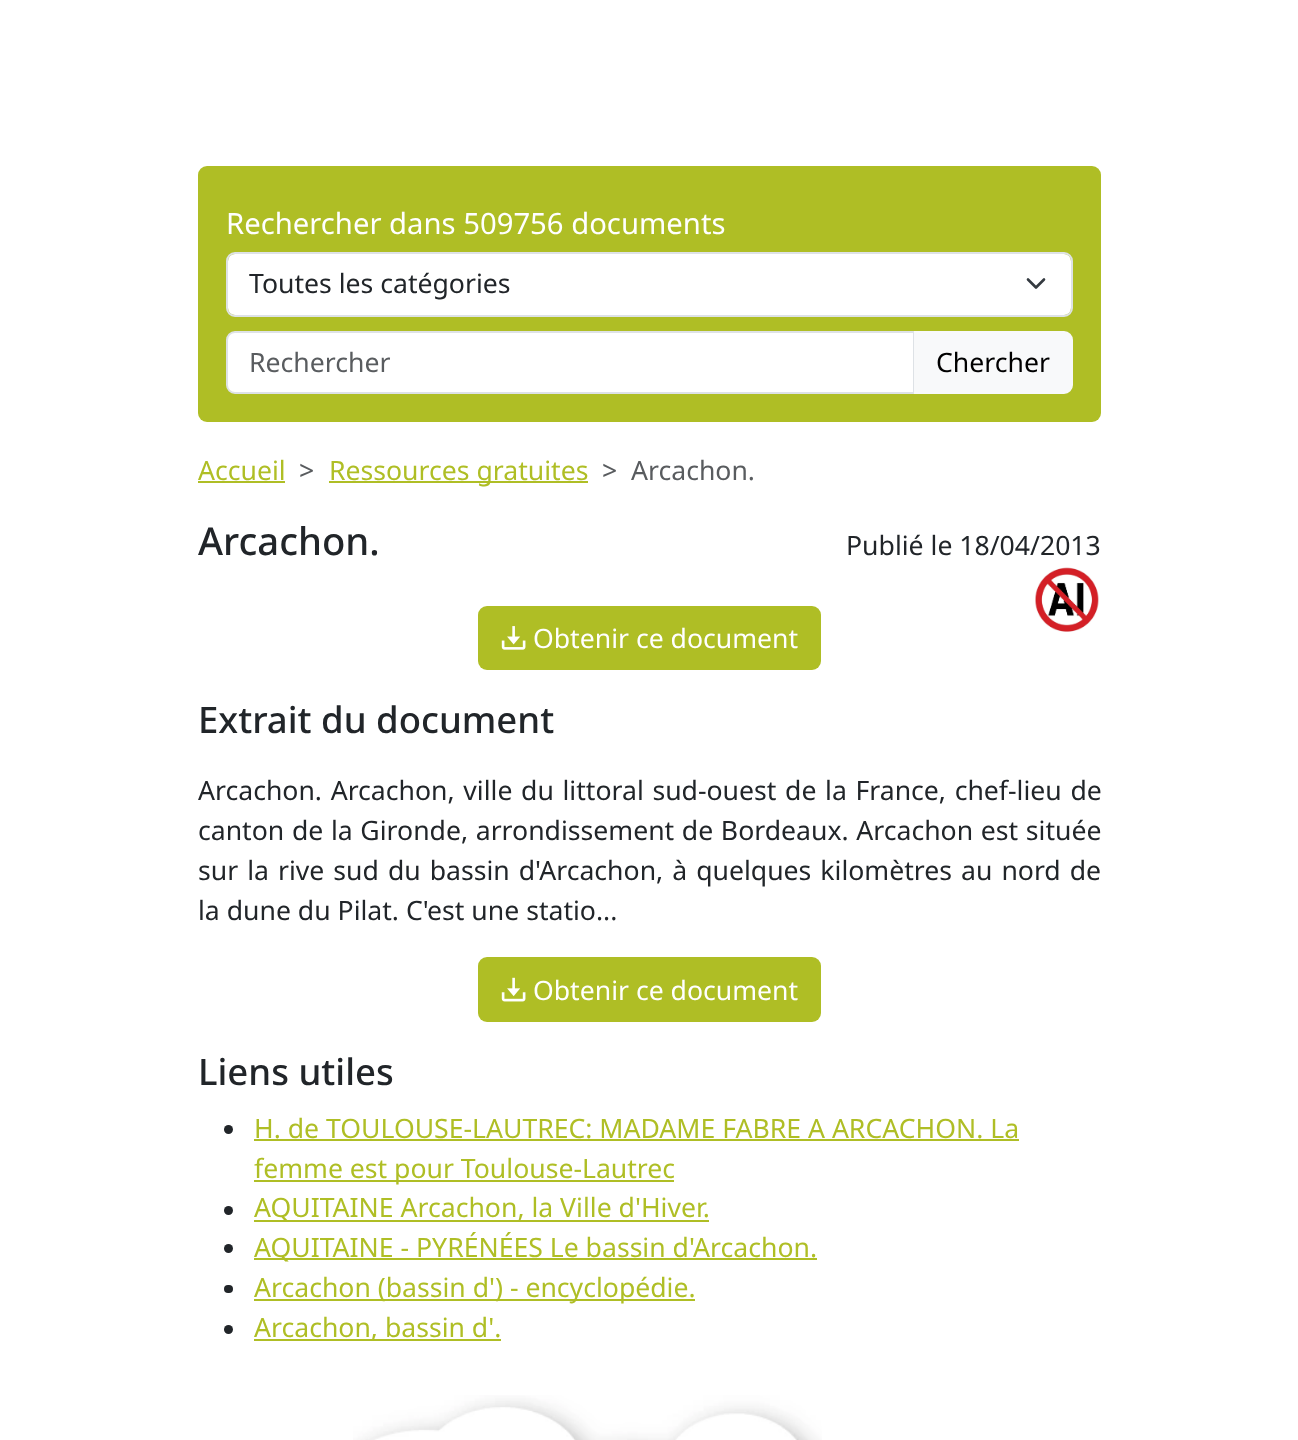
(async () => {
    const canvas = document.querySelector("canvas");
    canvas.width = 1298;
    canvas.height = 1440;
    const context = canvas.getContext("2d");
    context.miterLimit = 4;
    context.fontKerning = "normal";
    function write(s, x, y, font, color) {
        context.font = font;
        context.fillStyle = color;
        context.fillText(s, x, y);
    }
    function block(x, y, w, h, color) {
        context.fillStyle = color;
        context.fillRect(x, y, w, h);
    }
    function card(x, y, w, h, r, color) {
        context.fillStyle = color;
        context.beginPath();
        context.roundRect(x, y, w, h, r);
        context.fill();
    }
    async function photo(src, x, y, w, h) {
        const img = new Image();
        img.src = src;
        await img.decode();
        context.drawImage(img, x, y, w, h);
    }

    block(0, 0, 1298, 1440, "rgb(255, 255, 255)");
    card(198, 166, 903, 256, 9, "rgb(175, 190, 37)");
    write("Rechercher dans 509756 documents", 226, 234, "29.25px Noto Sans", "rgb(255, 255, 255)");
    card(228, 254, 843, 61, 7, "rgb(255, 255, 255)");
    context.beginPath();
    context.moveTo(1028, 279.5);
    context.lineTo(1036, 287.5);
    context.lineTo(1044, 279.5);
    context.strokeStyle = "rgb(52, 58, 64)";
    context.lineWidth = 2.6;
    context.lineCap = "round";
    context.lineJoin = "round";
    context.stroke();
    context.beginPath();
    context.roundRect(227, 253, 845, 63, 8);
    context.strokeStyle = "rgb(222, 226, 230)";
    context.lineWidth = 2;
    context.lineJoin = "miter";
    context.stroke();
    write("Toutes les catégories", 249, 293, "26.6px Noto Sans", "rgb(33, 37, 41)");
    context.fillStyle = "rgb(255, 255, 255)";
    context.beginPath();
    context.roundRect(227, 332, 687, 61, [8, 0, 0, 8]);
    context.fill();
    context.stroke();
    write("Rechercher", 249, 372, "26.6px Noto Sans", "rgb(89, 92, 95)");
    context.fillStyle = "rgb(248, 249, 250)";
    context.beginPath();
    context.roundRect(915, 332, 157, 61, [0, 8, 8, 0]);
    context.fill();
    context.strokeStyle = "rgb(248, 249, 250)";
    context.stroke();
    write("Chercher", 936, 372, "26.6px Noto Sans", "rgb(0, 0, 0)");
    write("Accueil", 198, 480, "26.6px Noto Sans", "rgb(175, 190, 37)");
    block(198, 481, 87, 2, "rgb(175, 190, 37)");
    write(">", 299, 480, "26.6px Noto Sans", "rgb(89, 92, 95)");
    block(329, 481, 259, 2, "rgb(175, 190, 37)");
    write("Ressources gratuites", 329, 480, "26.6px Noto Sans", "rgb(175, 190, 37)");
    write(">", 602, 480, "26.6px Noto Sans", "rgb(89, 92, 95)");
    write("Arcachon.", 631, 480, "26.6px Noto Sans", "rgb(89, 92, 95)");
    write("Arcachon.", 198, 555, "500 38.25px Noto Sans", "rgb(33, 37, 41)");
    write("Publié le 18/04/2013", 846, 555, "26.6px Noto Sans", "rgb(33, 37, 41)");
    await photo("media/1.png", 1035, 567, 64, 65);
    card(478, 606, 343, 64, 9, "rgb(175, 190, 37)");
    await photo("media/2.png", 501, 626, 25, 24);
    write("Obtenir ce document", 533, 648, "26.6px Noto Sans", "rgb(255, 255, 255)");
    write("Extrait du document", 198, 733, "500 36.5px Noto Sans", "rgb(33, 37, 41)");
    context.wordSpacing = "1.75px";
    write("Arcachon. Arcachon, ville du littoral sud-ouest de la France, chef-lieu de", 198, 800, "26.6px Noto Sans", "rgb(33, 37, 41)");
    context.wordSpacing = "0.75px";
    write("canton de la Gironde, arrondissement de Bordeaux. Arcachon est située", 198, 840, "26.6px Noto Sans", "rgb(33, 37, 41)");
    context.wordSpacing = "2.1px";
    write("sur la rive sud du bassin d'Arcachon, à quelques kilomètres au nord de", 198, 880, "26.6px Noto Sans", "rgb(33, 37, 41)");
    context.wordSpacing = "0px";
    write("la dune du Pilat. C'est une statio...", 198, 920, "26.6px Noto Sans", "rgb(33, 37, 41)");
    card(478, 957, 343, 65, 9, "rgb(175, 190, 37)");
    await photo("media/3.png", 501, 977, 25, 25);
    write("Obtenir ce document", 533, 1000, "26.6px Noto Sans", "rgb(255, 255, 255)");
    write("Liens utiles", 198, 1085, "500 36.5px Noto Sans", "rgb(33, 37, 41)");
    context.beginPath();
    context.arc(228.5, 1129.5, 4.5, 0, Math.PI * 2);
    context.fill();
    write("H. de TOULOUSE-LAUTREC: MADAME FABRE A ARCACHON. La", 254, 1138, "26.6px Noto Sans", "rgb(175, 190, 37)");
    block(254, 1139, 765, 2, "rgb(175, 190, 37)");
    block(254, 1180, 420, 2, "rgb(175, 190, 37)");
    write("femme est pour Toulouse-Lautrec", 254, 1178, "26.6px Noto Sans", "rgb(175, 190, 37)");
    context.fillStyle = "rgb(33, 37, 41)";
    context.beginPath();
    context.arc(228.5, 1210.5, 4.5, 0, Math.PI * 2);
    context.fill();
    block(254, 1220, 455, 2, "rgb(175, 190, 37)");
    write("AQUITAINE Arcachon, la Ville d'Hiver.", 254, 1217, "26.6px Noto Sans", "rgb(175, 190, 37)");
    context.fillStyle = "rgb(33, 37, 41)";
    context.beginPath();
    context.arc(228.5, 1248.5, 4.5, 0, Math.PI * 2);
    context.fill();
    block(254, 1258, 563, 2, "rgb(175, 190, 37)");
    write("AQUITAINE - PYRÉNÉES Le bassin d'Arcachon.", 254, 1257, "26.6px Noto Sans", "rgb(175, 190, 37)");
    card(224, 1285, 9, 8, 4, "rgb(33, 37, 41)");
    block(254, 1299, 441, 2, "rgb(175, 190, 37)");
    write("Arcachon (bassin d') - encyclopédie.", 254, 1297, "26.6px Noto Sans", "rgb(175, 190, 37)");
    context.fillStyle = "rgb(33, 37, 41)";
    context.beginPath();
    context.arc(228.5, 1329.5, 4.5, 0, Math.PI * 2);
    context.fill();
    block(254, 1339, 247, 2, "rgb(175, 190, 37)");
    write("Arcachon, bassin d'.", 254, 1337, "26.6px Noto Sans", "rgb(175, 190, 37)");
    await photo("media/4.png", 353, 1395, 469, 45);
})();
